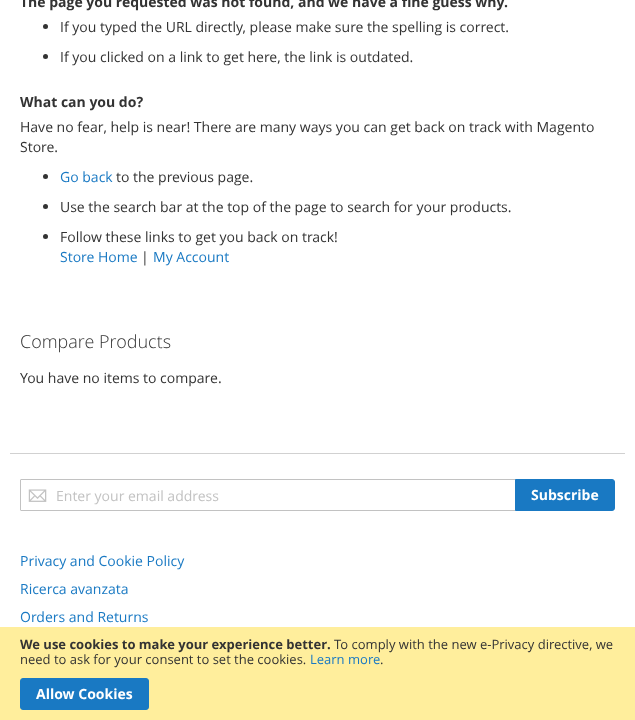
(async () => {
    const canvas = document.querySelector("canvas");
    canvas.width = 635;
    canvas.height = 720;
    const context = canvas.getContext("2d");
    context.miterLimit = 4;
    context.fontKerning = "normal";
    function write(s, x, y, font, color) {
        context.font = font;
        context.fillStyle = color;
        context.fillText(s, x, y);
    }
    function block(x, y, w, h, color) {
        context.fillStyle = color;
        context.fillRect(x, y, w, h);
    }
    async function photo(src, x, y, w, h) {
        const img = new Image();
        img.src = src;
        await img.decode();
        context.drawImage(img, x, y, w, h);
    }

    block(0, 0, 635, 720, "rgb(255, 255, 255)");
    write("The page you requested was not found, and we have a fine guess why.", 20, 7, "bold 14px Open Sans", "rgb(51, 51, 51)");
    context.beginPath();
    context.arc(45.5, 26.5, 2.5, 0, Math.PI * 2);
    context.fill();
    write("If you typed the URL directly, please make sure the spelling is correct.", 60, 32, "14px Open Sans", "rgb(51, 51, 51)");
    context.beginPath();
    context.arc(45.5, 56.5, 2.5, 0, Math.PI * 2);
    context.fill();
    write("If you clicked on a link to get here, the link is outdated.", 60, 62, "14px Open Sans", "rgb(51, 51, 51)");
    write("What can you do?", 20, 107, "bold 14px Open Sans", "rgb(51, 51, 51)");
    write("Have no fear, help is near! There are many ways you can get back on track with Magento", 20, 132, "14px Open Sans", "rgb(51, 51, 51)");
    write("Store.", 20, 152, "14px Open Sans", "rgb(51, 51, 51)");
    context.beginPath();
    context.arc(45.5, 176.5, 2.5, 0, Math.PI * 2);
    context.fill();
    write("Go back", 60, 182, "14px Open Sans", "rgb(25, 121, 195)");
    write("to the previous page.", 116, 182, "14px Open Sans", "rgb(51, 51, 51)");
    context.beginPath();
    context.arc(45.5, 206.5, 2.5, 0, Math.PI * 2);
    context.fill();
    write("Use the search bar at the top of the page to search for your products.", 60, 212, "14px Open Sans", "rgb(51, 51, 51)");
    context.beginPath();
    context.arc(45.5, 236.5, 2.5, 0, Math.PI * 2);
    context.fill();
    write("Follow these links to get you back on track!", 60, 242, "14px Open Sans", "rgb(51, 51, 51)");
    write("Store Home", 60, 262, "14px Open Sans", "rgb(25, 121, 195)");
    write("|", 141, 262, "14px Open Sans", "rgb(51, 51, 51)");
    write("My Account", 153, 262, "14px Open Sans", "rgb(25, 121, 195)");
    write("Compare Products", 20, 348, "300 18px Open Sans", "rgb(51, 51, 51)");
    write("You have no items to compare.", 20, 383, "14px Open Sans", "rgb(51, 51, 51)");
    block(10, 453, 615, 1, "rgb(209, 209, 209)");
    context.beginPath();
    context.roundRect(20.5, 479.5, 495, 31, 0.5);
    context.strokeStyle = "rgb(194, 194, 194)";
    context.stroke();
    await photo("media/1.png", 28, 489, 19, 13);
    write("Enter your email address", 56, 501, "14px Open Sans", "rgb(194, 194, 194)");
    context.fillStyle = "rgb(25, 121, 195)";
    context.beginPath();
    context.roundRect(515.5, 479.5, 99, 31, [0, 2.5, 2.5, 0]);
    context.fill();
    context.strokeStyle = "rgb(25, 121, 195)";
    context.stroke();
    write("Subscribe", 531, 500, "bold 14px Open Sans", "rgb(255, 255, 255)");
    write("Privacy and Cookie Policy", 20, 566, "14px Open Sans", "rgb(25, 121, 195)");
    write("Ricerca avanzata", 20, 594, "14px Open Sans", "rgb(25, 121, 195)");
    write("Orders and Returns", 20, 622, "14px Open Sans", "rgb(25, 121, 195)");
    block(0, 627, 635, 93, "rgb(255, 238, 156)");
    write("We use cookies to make your experience better.", 20, 649, "bold 13px Open Sans", "rgb(51, 51, 51)");
    write("To comply with the new e-Privacy directive, we", 334, 649, "13px Open Sans", "rgb(51, 51, 51)");
    write("need to ask for your consent to set the cookies.", 20, 664, "13px Open Sans", "rgb(51, 51, 51)");
    write("Learn more", 310, 664, "13px Open Sans", "rgb(25, 121, 195)");
    write(".", 380, 664, "13px Open Sans", "rgb(51, 51, 51)");
    context.fillStyle = "rgb(25, 121, 195)";
    context.beginPath();
    context.roundRect(20.5, 678.5, 128, 31, 2.5);
    context.fill();
    context.stroke();
    write("Allow Cookies", 36, 699, "bold 14px Open Sans", "rgb(255, 255, 255)");
})();
